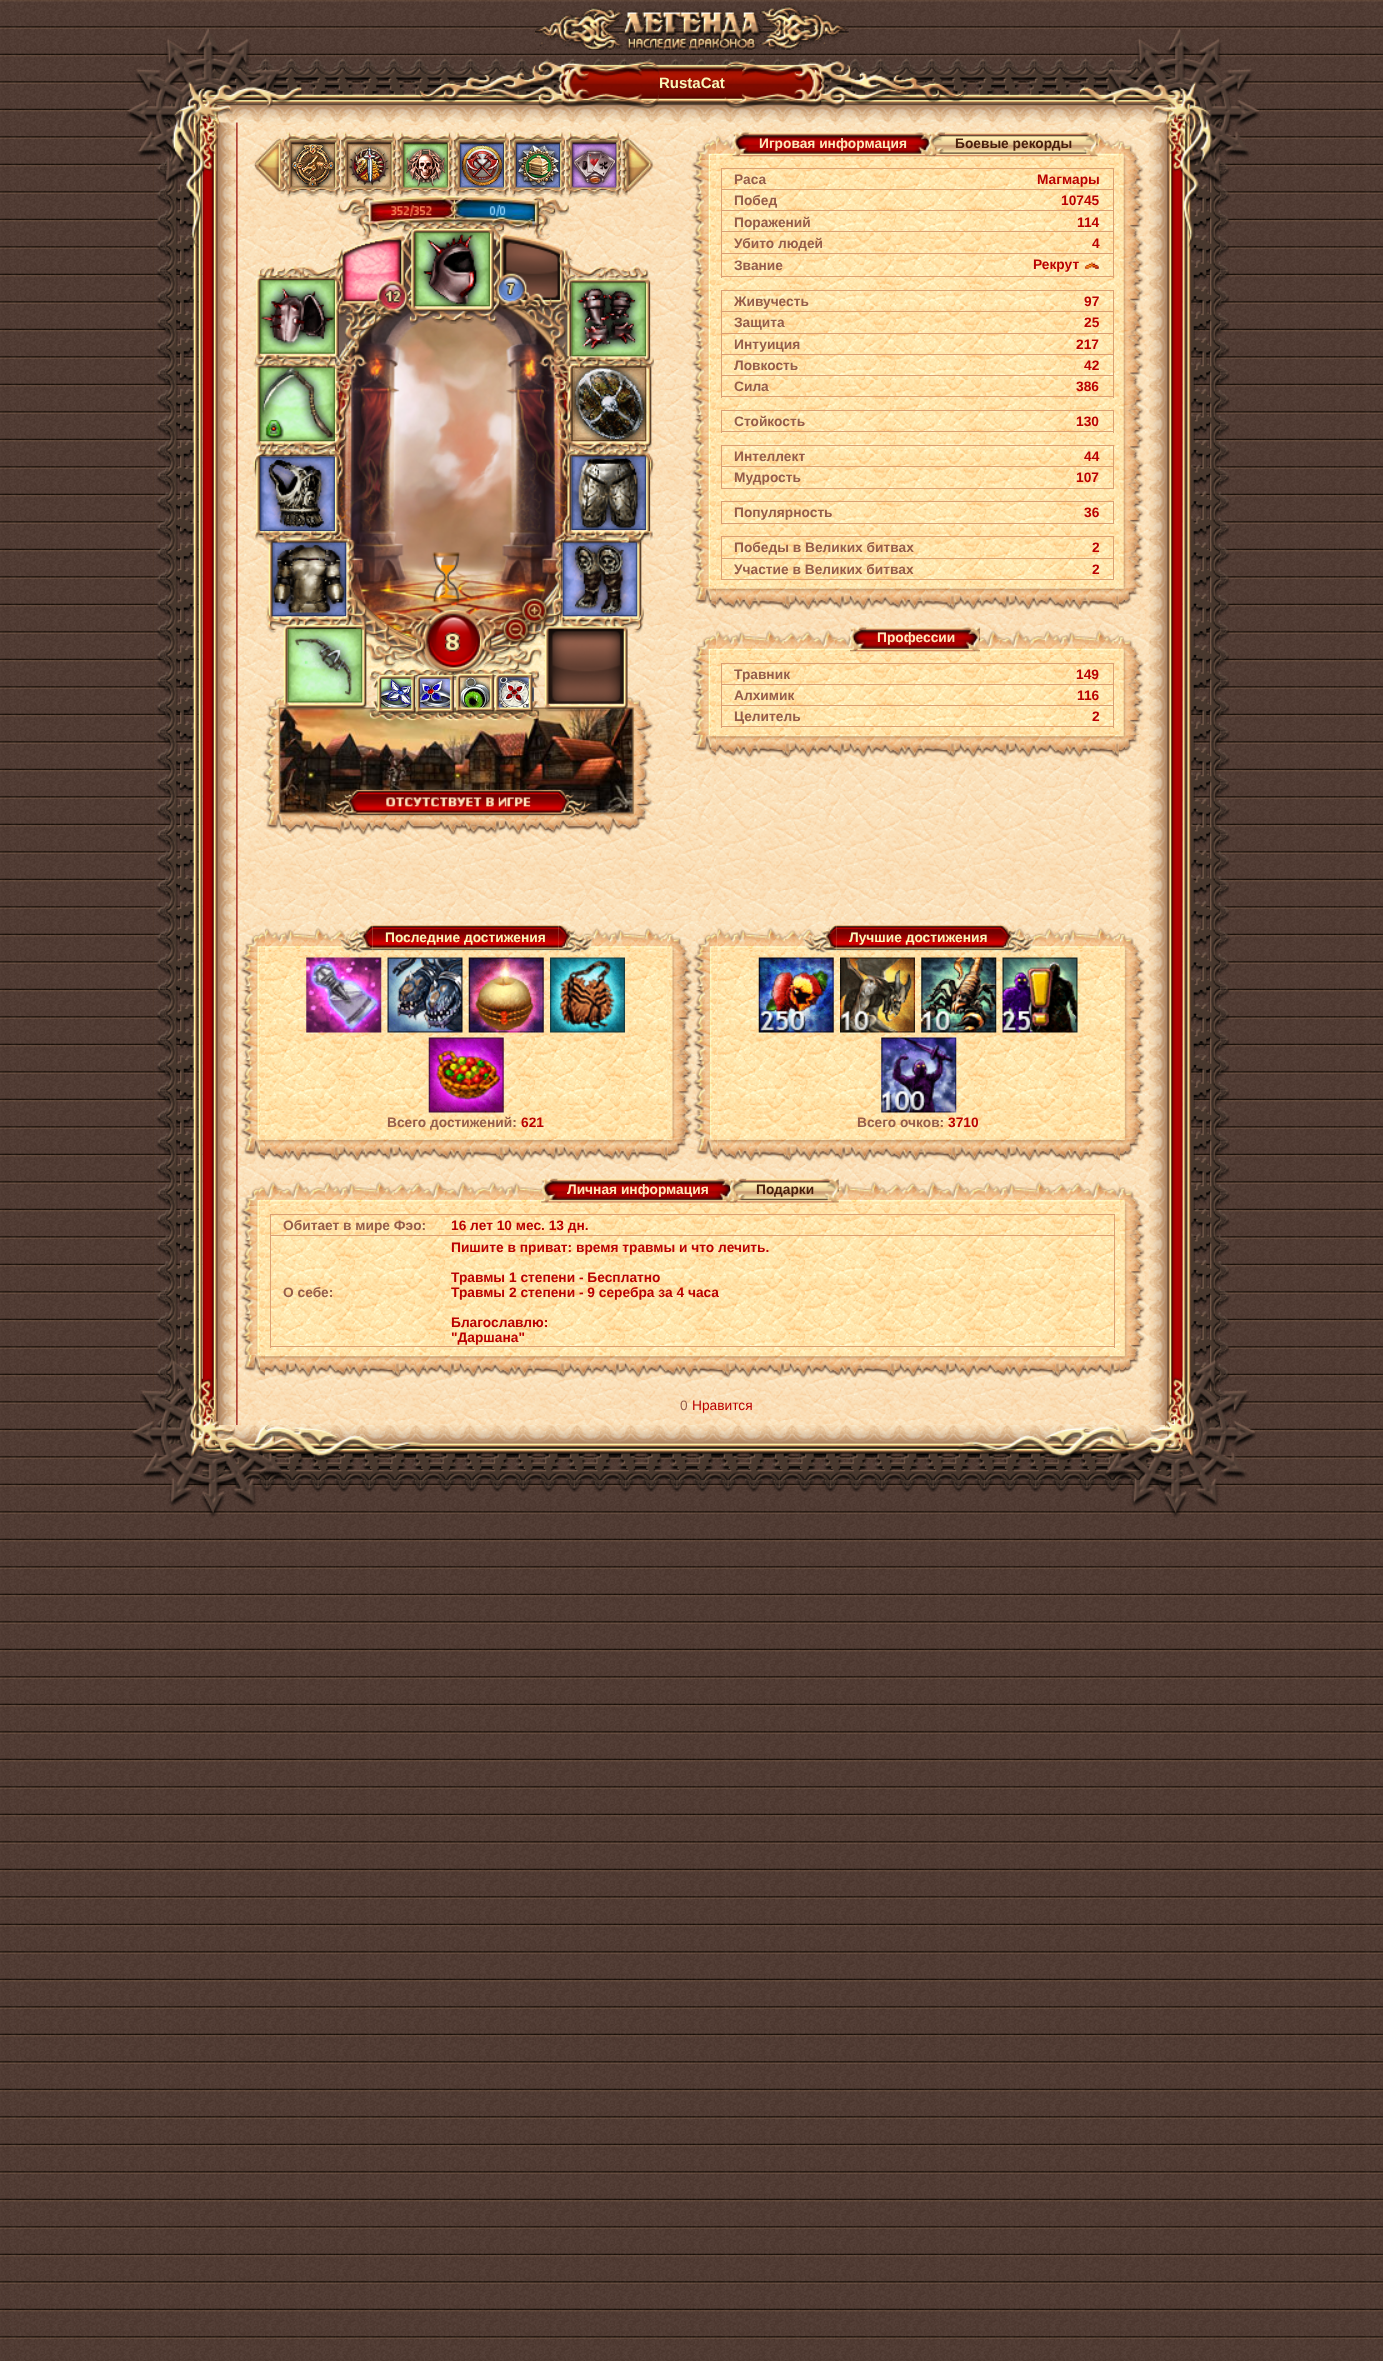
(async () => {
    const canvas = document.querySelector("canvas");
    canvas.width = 1383;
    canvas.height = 2361;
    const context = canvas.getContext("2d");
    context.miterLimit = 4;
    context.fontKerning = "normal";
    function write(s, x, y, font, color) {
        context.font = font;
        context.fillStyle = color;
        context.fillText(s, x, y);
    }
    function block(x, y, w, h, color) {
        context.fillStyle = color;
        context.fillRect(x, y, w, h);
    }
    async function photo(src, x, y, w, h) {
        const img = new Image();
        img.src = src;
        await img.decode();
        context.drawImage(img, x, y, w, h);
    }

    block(0, 0, 1383, 2361, "rgb(255, 255, 255)");
    await photo("media/1.png", 0, 0, 1383, 2361);
    await photo("media/2.png", 535, 6, 314, 44);
    await photo("media/4.png", 202, 58, 981, 46);
    await photo("media/8.png", 153, 103, 50, 1341);
    await photo("media/9.png", 1182, 103, 48, 1341);
    await photo("media/10.png", 202, 103, 981, 1341);
    await photo("media/11.png", 202, 103, 36, 1341);
    await photo("media/12.png", 1148, 103, 35, 1341);
    await photo("media/13.png", 217, 103, 951, 20);
    await photo("media/3.png", 126, 28, 176, 220);
    await photo("media/5.png", 419, 61, 241, 48);
    await photo("media/6.png", 658, 61, 307, 48);
    write("RustaCat", 659, 88, "bold 15px Liberation Sans", "rgb(250, 247, 185)");
    await photo("media/7.png", 1078, 28, 182, 220);
    await photo("media/14.png", 217, 1425, 951, 19);
    await photo("media/15.png", 253, 137, 32, 58);
    await photo("media/16.png", 285, 132, 55, 66);
    await photo("media/17.png", 291, 143, 44, 45);
    await photo("media/18.png", 341, 132, 56, 66);
    await photo("media/19.png", 347, 143, 45, 45);
    await photo("media/20.png", 397, 132, 56, 66);
    await photo("media/21.png", 403, 143, 45, 45);
    await photo("media/22.png", 453, 132, 56, 66);
    await photo("media/23.png", 460, 143, 44, 45);
    await photo("media/24.png", 510, 132, 55, 66);
    await photo("media/25.png", 516, 143, 44, 45);
    await photo("media/26.png", 566, 132, 56, 66);
    await photo("media/27.png", 572, 143, 45, 45);
    await photo("media/28.png", 622, 137, 32, 60);
    await photo("media/30.png", 415, 232, 75, 75);
    await photo("media/31.png", 260, 279, 75, 75);
    await photo("media/32.png", 571, 282, 76, 75);
    await photo("media/33.png", 260, 367, 75, 75);
    await photo("media/34.png", 572, 367, 75, 75);
    await photo("media/35.png", 260, 456, 75, 76);
    await photo("media/36.png", 571, 456, 76, 74);
    await photo("media/37.png", 272, 542, 75, 75);
    await photo("media/38.png", 562, 542, 76, 75);
    await photo("media/39.png", 287, 628, 76, 75);
    await photo("media/40.png", 377, 677, 38, 31);
    await photo("media/41.png", 416, 677, 38, 31);
    await photo("media/42.png", 456, 677, 38, 31);
    await photo("media/43.png", 498, 677, 36, 31);
    await photo("media/29.png", 252, 196, 402, 640);
    await photo("media/44.png", 695, 140, 22, 20);
    await photo("media/45.png", 716, 135, 403, 25);
    await photo("media/46.png", 732, 132, 21, 25);
    await photo("media/47.png", 748, 132, 185, 25);
    write("Игровая информация", 759, 148, "bold 13.75px Liberation Sans", "rgb(255, 233, 186)");
    await photo("media/48.png", 928, 132, 21, 25);
    await photo("media/49.png", 945, 132, 153, 25);
    write("Боевые рекорды", 955, 148, "bold 13.75px Liberation Sans", "rgb(70, 28, 11)");
    await photo("media/50.png", 1118, 141, 21, 19);
    await photo("media/51.png", 691, 160, 25, 428);
    await photo("media/52.png", 716, 160, 403, 428);
    block(721, 168, 393, 1, "rgb(219, 159, 115)");
    block(1113, 168, 1, 110, "rgb(219, 159, 115)");
    block(721, 276, 393, 1, "rgb(219, 159, 115)");
    block(721, 168, 1, 110, "rgb(219, 159, 115)");
    write("Раса", 734, 184, "bold 13.75px Liberation Sans", "rgb(149, 92, 74)");
    write("Магмары", 1037, 184, "bold 13.75px Liberation Sans", "rgb(186, 0, 0)");
    write("Побед", 734, 205, "bold 13.75px Liberation Sans", "rgb(149, 92, 74)");
    block(721, 189, 393, 1, "rgb(219, 159, 115)");
    write("10745", 1061, 205, "bold 13.75px Liberation Sans", "rgb(186, 0, 0)");
    write("Поражений", 734, 227, "bold 13.75px Liberation Sans", "rgb(149, 92, 74)");
    block(721, 210, 393, 1, "rgb(219, 159, 115)");
    write("114", 1077, 227, "bold 13.75px Liberation Sans", "rgb(186, 0, 0)");
    write("Убито людей", 734, 248, "bold 13.75px Liberation Sans", "rgb(149, 92, 74)");
    block(721, 231, 393, 1, "rgb(219, 159, 115)");
    write("4", 1092, 248, "bold 13.75px Liberation Sans", "rgb(186, 0, 0)");
    write("Звание", 734, 270, "bold 13.75px Liberation Sans", "rgb(149, 92, 74)");
    block(721, 253, 393, 1, "rgb(219, 159, 115)");
    write("Рекрут", 1033, 269, "bold 13.75px Liberation Sans", "rgb(186, 0, 0)");
    await photo("media/53.png", 1084, 262, 15, 7);
    block(721, 290, 393, 1, "rgb(219, 159, 115)");
    block(1113, 290, 1, 108, "rgb(219, 159, 115)");
    block(721, 396, 393, 1, "rgb(219, 159, 115)");
    block(721, 290, 1, 108, "rgb(219, 159, 115)");
    write("Живучесть", 734, 306, "bold 13.75px Liberation Sans", "rgb(149, 92, 74)");
    write("97", 1084, 306, "bold 13.75px Liberation Sans", "rgb(186, 0, 0)");
    write("Защита", 734, 327, "bold 13.75px Liberation Sans", "rgb(149, 92, 74)");
    block(721, 311, 393, 1, "rgb(219, 159, 115)");
    write("25", 1084, 327, "bold 13.75px Liberation Sans", "rgb(186, 0, 0)");
    write("Интуиция", 734, 349, "bold 13.75px Liberation Sans", "rgb(149, 92, 74)");
    block(721, 333, 393, 1, "rgb(219, 159, 115)");
    write("217", 1076, 349, "bold 13.75px Liberation Sans", "rgb(186, 0, 0)");
    write("Ловкость", 734, 370, "bold 13.75px Liberation Sans", "rgb(149, 92, 74)");
    block(721, 354, 393, 1, "rgb(219, 159, 115)");
    write("42", 1084, 370, "bold 13.75px Liberation Sans", "rgb(186, 0, 0)");
    write("Сила", 734, 391, "bold 13.75px Liberation Sans", "rgb(149, 92, 74)");
    block(721, 375, 393, 1, "rgb(219, 159, 115)");
    write("386", 1076, 391, "bold 13.75px Liberation Sans", "rgb(186, 0, 0)");
    block(721, 410, 393, 1, "rgb(219, 159, 115)");
    block(1113, 410, 1, 23, "rgb(219, 159, 115)");
    block(721, 431, 393, 1, "rgb(219, 159, 115)");
    block(721, 410, 1, 23, "rgb(219, 159, 115)");
    write("Стойкость", 734, 426, "bold 13.75px Liberation Sans", "rgb(149, 92, 74)");
    write("130", 1076, 426, "bold 13.75px Liberation Sans", "rgb(186, 0, 0)");
    block(721, 445, 393, 1, "rgb(219, 159, 115)");
    block(1113, 445, 1, 44, "rgb(219, 159, 115)");
    block(721, 488, 393, 1, "rgb(219, 159, 115)");
    block(721, 445, 1, 44, "rgb(219, 159, 115)");
    write("Интеллект", 734, 461, "bold 13.75px Liberation Sans", "rgb(149, 92, 74)");
    write("44", 1084, 461, "bold 13.75px Liberation Sans", "rgb(186, 0, 0)");
    write("Мудрость", 734, 482, "bold 13.75px Liberation Sans", "rgb(149, 92, 74)");
    block(721, 466, 393, 1, "rgb(219, 159, 115)");
    write("107", 1076, 482, "bold 13.75px Liberation Sans", "rgb(186, 0, 0)");
    block(721, 501, 393, 1, "rgb(219, 159, 115)");
    block(1113, 501, 1, 23, "rgb(219, 159, 115)");
    block(721, 523, 393, 1, "rgb(219, 159, 115)");
    block(721, 501, 1, 23, "rgb(219, 159, 115)");
    write("Популярность", 734, 517, "bold 13.75px Liberation Sans", "rgb(149, 92, 74)");
    write("36", 1084, 517, "bold 13.75px Liberation Sans", "rgb(186, 0, 0)");
    block(721, 536, 393, 1, "rgb(219, 159, 115)");
    block(1113, 536, 1, 44, "rgb(219, 159, 115)");
    block(721, 579, 393, 1, "rgb(219, 159, 115)");
    block(721, 536, 1, 44, "rgb(219, 159, 115)");
    write("Победы в Великих битвах", 734, 552, "bold 13.75px Liberation Sans", "rgb(149, 92, 74)");
    write("2", 1092, 552, "bold 13.75px Liberation Sans", "rgb(186, 0, 0)");
    write("Участие в Великих битвах", 734, 574, "bold 13.75px Liberation Sans", "rgb(149, 92, 74)");
    block(721, 558, 393, 1, "rgb(219, 159, 115)");
    write("2", 1092, 574, "bold 13.75px Liberation Sans", "rgb(186, 0, 0)");
    await photo("media/54.png", 1119, 160, 25, 428);
    await photo("media/55.png", 695, 587, 22, 22);
    await photo("media/56.png", 716, 587, 403, 24);
    await photo("media/57.png", 1118, 587, 20, 19);
    await photo("media/58.png", 695, 635, 22, 20);
    await photo("media/59.png", 716, 630, 403, 25);
    await photo("media/60.png", 850, 627, 21, 25);
    await photo("media/61.png", 866, 627, 114, 25);
    write("Профессии", 877, 642, "bold 13.75px Liberation Sans", "rgb(255, 233, 186)");
    await photo("media/62.png", 1118, 636, 21, 19);
    await photo("media/63.png", 691, 655, 25, 80);
    await photo("media/64.png", 716, 655, 403, 80);
    block(721, 663, 393, 1, "rgb(219, 159, 115)");
    block(1113, 663, 1, 65, "rgb(219, 159, 115)");
    block(721, 726, 393, 1, "rgb(219, 159, 115)");
    block(721, 663, 1, 65, "rgb(219, 159, 115)");
    write("Травник", 734, 679, "bold 13.75px Liberation Sans", "rgb(149, 92, 74)");
    write("149", 1076, 679, "bold 13.75px Liberation Sans", "rgb(186, 0, 0)");
    write("Алхимик", 734, 700, "bold 13.75px Liberation Sans", "rgb(149, 92, 74)");
    block(721, 684, 393, 1, "rgb(219, 159, 115)");
    write("116", 1077, 700, "bold 13.75px Liberation Sans", "rgb(186, 0, 0)");
    write("Целитель", 734, 721, "bold 13.75px Liberation Sans", "rgb(149, 92, 74)");
    block(721, 705, 393, 1, "rgb(219, 159, 115)");
    write("2", 1092, 721, "bold 13.75px Liberation Sans", "rgb(186, 0, 0)");
    await photo("media/65.png", 1119, 655, 25, 80);
    await photo("media/66.png", 695, 735, 22, 22);
    await photo("media/67.png", 716, 735, 403, 24);
    await photo("media/68.png", 1118, 735, 20, 19);
    await photo("media/69.png", 244, 932, 21, 21);
    await photo("media/70.png", 265, 927, 403, 26);
    await photo("media/71.png", 338, 925, 35, 28);
    await photo("media/72.png", 372, 925, 187, 26);
    write("Последние достижения", 385, 942, "bold 13.75px Liberation Sans", "rgb(250, 247, 185)");
    await photo("media/73.png", 558, 925, 35, 28);
    await photo("media/74.png", 667, 933, 21, 20);
    await photo("media/75.png", 240, 952, 25, 162);
    await photo("media/76.png", 265, 952, 403, 162);
    await photo("media/77.png", 306, 957, 76, 76);
    await photo("media/78.png", 387, 957, 76, 76);
    await photo("media/79.png", 468, 957, 76, 76);
    await photo("media/80.png", 550, 957, 75, 76);
    await photo("media/81.png", 428, 1037, 76, 76);
    await photo("media/82.png", 667, 952, 26, 162);
    await photo("media/83.png", 240, 1113, 25, 26);
    await photo("media/84.png", 265, 1113, 403, 26);
    write("Всего достижений:", 387, 1127, "bold 13.75px Liberation Sans", "rgb(149, 92, 74)");
    write("621", 521, 1127, "bold 13.75px Liberation Sans", "rgb(186, 0, 0)");
    await photo("media/85.png", 667, 1113, 26, 26);
    await photo("media/86.png", 243, 1138, 22, 23);
    await photo("media/87.png", 265, 1138, 403, 24);
    await photo("media/88.png", 667, 1138, 20, 20);
    await photo("media/89.png", 697, 932, 21, 21);
    await photo("media/90.png", 717, 927, 403, 26);
    await photo("media/91.png", 802, 925, 35, 28);
    await photo("media/92.png", 836, 925, 164, 26);
    write("Лучшие достижения", 849, 942, "bold 13.75px Liberation Sans", "rgb(250, 247, 185)");
    await photo("media/93.png", 1000, 925, 34, 28);
    await photo("media/94.png", 1120, 933, 20, 20);
    await photo("media/95.png", 692, 952, 26, 162);
    await photo("media/96.png", 717, 952, 403, 162);
    await photo("media/97.png", 758, 957, 76, 76);
    await photo("media/98.png", 840, 957, 75, 76);
    await photo("media/99.png", 921, 957, 76, 76);
    await photo("media/100.png", 1002, 957, 76, 76);
    await photo("media/101.png", 881, 1037, 76, 76);
    await photo("media/102.png", 1120, 952, 25, 162);
    await photo("media/103.png", 692, 1113, 26, 26);
    await photo("media/104.png", 717, 1113, 403, 26);
    write("Всего очков:", 857, 1127, "bold 13.75px Liberation Sans", "rgb(149, 92, 74)");
    write("3710", 948, 1127, "bold 13.75px Liberation Sans", "rgb(186, 0, 0)");
    await photo("media/105.png", 1120, 1113, 25, 26);
    await photo("media/106.png", 696, 1138, 22, 22);
    await photo("media/107.png", 717, 1138, 403, 25);
    await photo("media/108.png", 1120, 1138, 19, 20);
    await photo("media/109.png", 244, 1186, 21, 21);
    await photo("media/110.png", 265, 1181, 855, 26);
    await photo("media/111.png", 541, 1178, 21, 25);
    await photo("media/112.png", 557, 1178, 177, 25);
    write("Личная информация", 567, 1194, "bold 13.75px Liberation Sans", "rgb(255, 233, 186)");
    await photo("media/113.png", 730, 1178, 20, 25);
    await photo("media/114.png", 746, 1178, 93, 25);
    write("Подарки", 756, 1194, "bold 13.75px Liberation Sans", "rgb(70, 28, 11)");
    await photo("media/115.png", 1120, 1187, 20, 20);
    await photo("media/116.png", 240, 1206, 25, 149);
    await photo("media/117.png", 265, 1206, 855, 149);
    block(270, 1214, 845, 1, "rgb(219, 159, 115)");
    block(1114, 1214, 1, 134, "rgb(219, 159, 115)");
    block(270, 1346, 845, 1, "rgb(219, 159, 115)");
    block(270, 1214, 1, 134, "rgb(219, 159, 115)");
    write("Обитает в мире Фэо:", 283, 1230, "bold 13.75px Liberation Sans", "rgb(149, 92, 74)");
    write("16 лет 10 мес. 13 дн.", 451, 1230, "bold 13.75px Liberation Sans", "rgb(186, 0, 0)");
    write("О себе:", 283, 1297, "bold 13.75px Liberation Sans", "rgb(149, 92, 74)");
    block(270, 1235, 845, 1, "rgb(219, 159, 115)");
    write("Пишите в приват: время травмы и что лечить.", 451, 1252, "bold 13.75px Liberation Sans", "rgb(186, 0, 0)");
    write("Травмы 1 степени - Бесплатно", 451, 1282, "bold 13.75px Liberation Sans", "rgb(186, 0, 0)");
    write("Травмы 2 степени - 9 серебра за 4 часа", 451, 1297, "bold 13.75px Liberation Sans", "rgb(186, 0, 0)");
    write("Благославлю:", 451, 1327, "bold 13.75px Liberation Sans", "rgb(186, 0, 0)");
    write("\"Даршана\"", 451, 1342, "bold 13.75px Liberation Sans", "rgb(186, 0, 0)");
    await photo("media/118.png", 1120, 1206, 25, 149);
    await photo("media/124.png", 202, 1443, 981, 49);
    await photo("media/122.png", 131, 1360, 296, 158);
    await photo("media/119.png", 243, 1355, 22, 22);
    await photo("media/123.png", 957, 1360, 299, 158);
    await photo("media/120.png", 265, 1355, 855, 24);
    await photo("media/121.png", 1120, 1355, 19, 19);
    write("0", 680, 1410, "13.75px Liberation Sans", "rgb(149, 92, 74)");
    write("Нравится", 692, 1410, "13.75px Liberation Sans", "rgb(186, 0, 0)");
})();
